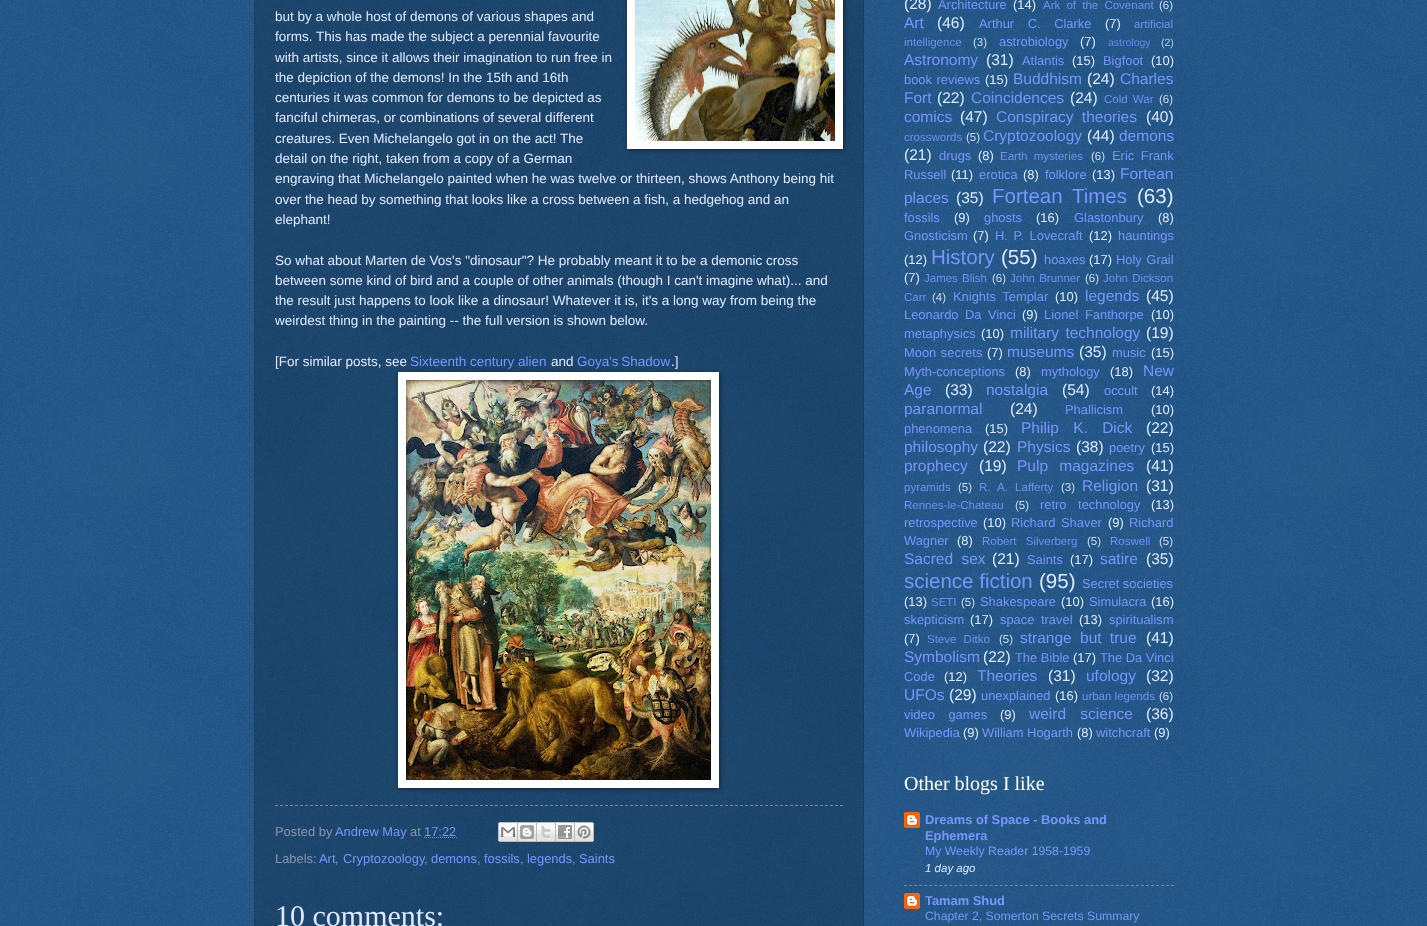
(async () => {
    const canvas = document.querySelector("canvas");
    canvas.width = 1427;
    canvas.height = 926;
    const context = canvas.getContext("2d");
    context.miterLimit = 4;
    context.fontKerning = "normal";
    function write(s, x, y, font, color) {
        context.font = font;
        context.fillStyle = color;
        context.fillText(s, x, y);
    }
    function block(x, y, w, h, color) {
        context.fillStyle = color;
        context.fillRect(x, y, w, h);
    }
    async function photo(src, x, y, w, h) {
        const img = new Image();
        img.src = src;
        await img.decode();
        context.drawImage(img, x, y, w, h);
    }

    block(0, 0, 1427, 926, "rgb(0, 60, 116)");
    await photo("media/1.png", 0, 0, 1427, 926);
    block(254, 0, 610, 926, "rgba(0, 0, 0, 0.2)");
    context.beginPath();
    context.moveTo(863.5, -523);
    context.lineTo(863.5, 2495);
    context.strokeStyle = "rgb(29, 48, 87)";
    context.setLineDash([1, 1]);
    context.stroke();
    context.beginPath();
    context.moveTo(254.5, -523);
    context.lineTo(254.5, 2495);
    context.stroke();
    write("but by a whole host of demons of various shapes and", 275, 21, "13.5px Liberation Sans", "rgb(222, 233, 255)");
    context.fillStyle = "rgba(0, 0, 0, 0.5)";
    context.filter = "blur(2.5px)";
    context.beginPath();
    context.rect(628, -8, 216, 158);
    context.fill();
    context.filter = "none";
    block(627, 0, 216, 149, "rgb(255, 255, 255)");
    await photo("media/2.png", 635, 0, 200, 141);
    write("forms. This has made the subject a perennial favourite", 275, 41, "13.5px Liberation Sans", "rgb(222, 233, 255)");
    write("with artists, since it allows their imagination to run free in", 275, 62, "13.5px Liberation Sans", "rgb(222, 233, 255)");
    write("the depiction of the demons! In the 15th and 16th", 275, 82, "13.5px Liberation Sans", "rgb(222, 233, 255)");
    write("centuries it was common for demons to be depicted as", 275, 102, "13.5px Liberation Sans", "rgb(222, 233, 255)");
    write("fanciful chimeras, or combinations of several different", 275, 122, "13.5px Liberation Sans", "rgb(222, 233, 255)");
    write("creatures. Even Michelangelo got in on the act! The", 275, 143, "13.5px Liberation Sans", "rgb(222, 233, 255)");
    write("detail on the right, taken from a copy of a German", 275, 163, "13.5px Liberation Sans", "rgb(222, 233, 255)");
    write("engraving that Michelangelo painted when he was twelve or thirteen, shows Anthony being hit", 275, 183, "13.5px Liberation Sans", "rgb(222, 233, 255)");
    write("over the head by something that looks like a cross between a fish, a hedgehog and an", 275, 204, "13.5px Liberation Sans", "rgb(222, 233, 255)");
    write("elephant!", 275, 224, "13.5px Liberation Sans", "rgb(222, 233, 255)");
    write("So what about Marten de Vos's \"dinosaur\"? He probably meant it to be a demonic cross", 275, 265, "13.5px Liberation Sans", "rgb(222, 233, 255)");
    write("between some kind of bird and a couple of other animals (though I can't imagine what)... and", 275, 285, "13.5px Liberation Sans", "rgb(222, 233, 255)");
    write("the result just happens to look like a dinosaur! Whatever it is, it's a long way from being the", 275, 305, "13.5px Liberation Sans", "rgb(222, 233, 255)");
    write("weirdest thing in the painting -- the full version is shown below.", 275, 325, "13.5px Liberation Sans", "rgb(222, 233, 255)");
    write("[For similar posts, see", 275, 366, "13.5px Liberation Sans", "rgb(222, 233, 255)");
    write("Sixteenth century alien", 410, 366, "13.5px Liberation Sans", "rgb(121, 149, 255)");
    write("and", 551, 366, "13.5px Liberation Sans", "rgb(222, 233, 255)");
    context.wordSpacing = "-1px";
    write("Goya's Shadow", 577, 366, "13.5px Liberation Sans", "rgb(121, 149, 255)");
    context.wordSpacing = "0px";
    write(".]", 671, 366, "13.5px Liberation Sans", "rgb(222, 233, 255)");
    context.fillStyle = "rgba(0, 0, 0, 0.5)";
    context.filter = "blur(2.5px)";
    context.beginPath();
    context.rect(399, 373, 321, 416);
    context.fill();
    context.filter = "none";
    block(398, 372, 321, 416, "rgb(255, 255, 255)");
    await photo("media/3.png", 406, 380, 305, 400);
    context.beginPath();
    context.moveTo(275, 805.5);
    context.lineTo(843, 805.5);
    context.strokeStyle = "rgb(122, 133, 155)";
    context.setLineDash([3, 2]);
    context.stroke();
    write("Posted by", 275, 836, "12.9px Liberation Sans", "rgb(138, 149, 171)");
    write("Andrew May", 335, 836, "12.9px Liberation Sans", "rgb(121, 149, 255)");
    write("at", 410, 836, "12.9px Liberation Sans", "rgb(138, 149, 171)");
    write("17:22", 424, 836, "12.9px Liberation Sans", "rgb(121, 149, 255)");
    context.beginPath();
    context.moveTo(424, 837.5);
    context.lineTo(456.5, 837.5);
    context.strokeStyle = "rgb(121, 149, 255)";
    context.setLineDash([1, 1]);
    context.stroke();
    await photo("media/4.png", 498, 822, 20, 20);
    await photo("media/5.png", 518, 822, 19, 20);
    await photo("media/6.png", 537, 822, 19, 20);
    await photo("media/7.png", 556, 822, 19, 20);
    await photo("media/8.png", 575, 822, 19, 20);
    write("Labels:", 275, 863, "12.9px Liberation Sans", "rgb(138, 149, 171)");
    write("Art", 319, 863, "12.9px Liberation Sans", "rgb(121, 149, 255)");
    write(",", 335, 863, "12.9px Liberation Sans", "rgb(138, 149, 171)");
    write("Cryptozoology", 343, 863, "12.9px Liberation Sans", "rgb(121, 149, 255)");
    write(",", 424, 863, "12.9px Liberation Sans", "rgb(138, 149, 171)");
    write("demons", 431, 863, "12.9px Liberation Sans", "rgb(121, 149, 255)");
    write(",", 477, 863, "12.9px Liberation Sans", "rgb(138, 149, 171)");
    write("fossils", 484, 863, "12.9px Liberation Sans", "rgb(121, 149, 255)");
    write(",", 520, 863, "12.9px Liberation Sans", "rgb(138, 149, 171)");
    write("legends", 527, 863, "12.9px Liberation Sans", "rgb(121, 149, 255)");
    write(",", 572, 863, "12.9px Liberation Sans", "rgb(138, 149, 171)");
    write("Saints", 579, 863, "12.9px Liberation Sans", "rgb(121, 149, 255)");
    write("10 comments:", 275, 926, "30px Liberation Serif", "rgb(222, 233, 255)");
    write("(28)", 904, 9, "15.5px Liberation Sans", "rgb(222, 233, 255)");
    write("Architecture", 938, 9, "12.9px Liberation Sans", "rgb(121, 149, 255)");
    write("(14)", 1013, 9, "12.9px Liberation Sans", "rgb(222, 233, 255)");
    context.wordSpacing = "3px";
    write("Ark of the Covenant", 1043, 9, "11.5px Liberation Sans", "rgb(112, 143, 243)");
    context.wordSpacing = "0px";
    write("(6)", 1159, 9, "11.5px Liberation Sans", "rgb(203, 218, 243)");
    write("Art", 904, 28, "15.5px Liberation Sans", "rgb(121, 149, 255)");
    write("(46)", 937, 28, "15.5px Liberation Sans", "rgb(222, 233, 255)");
    context.wordSpacing = "10px";
    write("Arthur C. Clarke", 979, 28, "12.9px Liberation Sans", "rgb(121, 149, 255)");
    context.wordSpacing = "0px";
    write("(7)", 1105, 28, "12.9px Liberation Sans", "rgb(222, 233, 255)");
    write("artificial", 1134, 28, "11.5px Liberation Sans", "rgb(112, 143, 243)");
    write("intelligence", 904, 46, "11.5px Liberation Sans", "rgb(112, 143, 243)");
    write("(3)", 973, 46, "11.5px Liberation Sans", "rgb(203, 218, 243)");
    write("astrobiology", 999, 46, "12.9px Liberation Sans", "rgb(121, 149, 255)");
    write("(7)", 1080, 46, "12.9px Liberation Sans", "rgb(222, 233, 255)");
    write("astrology", 1108, 46, "10.5px Liberation Sans", "rgb(104, 137, 231)");
    write("(2)", 1161, 46, "10.5px Liberation Sans", "rgb(185, 204, 231)");
    write("Astronomy", 904, 65, "15.5px Liberation Sans", "rgb(121, 149, 255)");
    write("(31)", 986, 65, "15.5px Liberation Sans", "rgb(222, 233, 255)");
    write("Atlantis", 1022, 65, "12.9px Liberation Sans", "rgb(121, 149, 255)");
    write("(15)", 1072, 65, "12.9px Liberation Sans", "rgb(222, 233, 255)");
    write("Bigfoot", 1103, 65, "12.9px Liberation Sans", "rgb(121, 149, 255)");
    write("(10)", 1151, 65, "12.9px Liberation Sans", "rgb(222, 233, 255)");
    context.wordSpacing = "1px";
    write("book reviews", 904, 84, "12.9px Liberation Sans", "rgb(121, 149, 255)");
    context.wordSpacing = "0px";
    write("(15)", 985, 84, "12.9px Liberation Sans", "rgb(222, 233, 255)");
    write("Buddhism", 1013, 84, "15.5px Liberation Sans", "rgb(121, 149, 255)");
    write("(24)", 1087, 84, "15.5px Liberation Sans", "rgb(222, 233, 255)");
    write("Charles", 1120, 84, "15.5px Liberation Sans", "rgb(121, 149, 255)");
    write("Fort", 904, 103, "15.5px Liberation Sans", "rgb(121, 149, 255)");
    write("(22)", 937, 103, "15.5px Liberation Sans", "rgb(222, 233, 255)");
    write("Coincidences", 971, 103, "15.5px Liberation Sans", "rgb(121, 149, 255)");
    write("(24)", 1070, 103, "15.5px Liberation Sans", "rgb(222, 233, 255)");
    context.wordSpacing = "2px";
    write("Cold War", 1104, 103, "11.5px Liberation Sans", "rgb(112, 143, 243)");
    context.wordSpacing = "0px";
    write("(6)", 1159, 103, "11.5px Liberation Sans", "rgb(203, 218, 243)");
    write("comics", 904, 122, "15.5px Liberation Sans", "rgb(121, 149, 255)");
    write("(47)", 960, 122, "15.5px Liberation Sans", "rgb(222, 233, 255)");
    context.wordSpacing = "4px";
    write("Conspiracy theories", 996, 122, "15.5px Liberation Sans", "rgb(121, 149, 255)");
    context.wordSpacing = "0px";
    write("(40)", 1146, 122, "15.5px Liberation Sans", "rgb(222, 233, 255)");
    write("crosswords", 904, 141, "11.5px Liberation Sans", "rgb(112, 143, 243)");
    write("(5)", 966, 141, "11.5px Liberation Sans", "rgb(203, 218, 243)");
    write("Cryptozoology", 983, 141, "15.5px Liberation Sans", "rgb(121, 149, 255)");
    write("(44)", 1087, 141, "15.5px Liberation Sans", "rgb(222, 233, 255)");
    write("demons", 1119, 141, "15.5px Liberation Sans", "rgb(121, 149, 255)");
    write("(21)", 904, 160, "15.5px Liberation Sans", "rgb(222, 233, 255)");
    write("drugs", 939, 160, "12.9px Liberation Sans", "rgb(121, 149, 255)");
    write("(8)", 978, 160, "12.9px Liberation Sans", "rgb(222, 233, 255)");
    context.wordSpacing = "3px";
    write("Earth mysteries", 1000, 160, "11.5px Liberation Sans", "rgb(112, 143, 243)");
    context.wordSpacing = "0px";
    write("(6)", 1091, 160, "11.5px Liberation Sans", "rgb(203, 218, 243)");
    context.wordSpacing = "3px";
    write("Eric Frank", 1112, 160, "12.9px Liberation Sans", "rgb(121, 149, 255)");
    context.wordSpacing = "0px";
    write("Russell", 904, 179, "12.9px Liberation Sans", "rgb(121, 149, 255)");
    write("(11)", 951, 179, "12.9px Liberation Sans", "rgb(222, 233, 255)");
    write("erotica", 979, 179, "12.9px Liberation Sans", "rgb(121, 149, 255)");
    write("(8)", 1023, 179, "12.9px Liberation Sans", "rgb(222, 233, 255)");
    write("folklore", 1045, 179, "12.9px Liberation Sans", "rgb(121, 149, 255)");
    write("(13)", 1092, 179, "12.9px Liberation Sans", "rgb(222, 233, 255)");
    write("Fortean", 1120, 179, "15.5px Liberation Sans", "rgb(121, 149, 255)");
    write("places", 904, 203, "15.5px Liberation Sans", "rgb(121, 149, 255)");
    write("(35)", 956, 203, "15.5px Liberation Sans", "rgb(222, 233, 255)");
    context.wordSpacing = "4px";
    write("Fortean Times", 992, 203, "20.5px Liberation Sans", "rgb(121, 149, 255)");
    context.wordSpacing = "0px";
    write("(63)", 1137, 203, "20.5px Liberation Sans", "rgb(222, 233, 255)");
    write("fossils", 904, 222, "12.9px Liberation Sans", "rgb(121, 149, 255)");
    write("(9)", 954, 222, "12.9px Liberation Sans", "rgb(222, 233, 255)");
    write("ghosts", 984, 222, "12.9px Liberation Sans", "rgb(121, 149, 255)");
    write("(16)", 1036, 222, "12.9px Liberation Sans", "rgb(222, 233, 255)");
    write("Glastonbury", 1074, 222, "12.9px Liberation Sans", "rgb(121, 149, 255)");
    write("(8)", 1158, 222, "12.9px Liberation Sans", "rgb(222, 233, 255)");
    write("Gnosticism", 904, 240, "12.9px Liberation Sans", "rgb(121, 149, 255)");
    write("(7)", 973, 240, "12.9px Liberation Sans", "rgb(222, 233, 255)");
    context.wordSpacing = "2px";
    write("H. P. Lovecraft", 995, 240, "12.9px Liberation Sans", "rgb(121, 149, 255)");
    context.wordSpacing = "0px";
    write("(12)", 1089, 240, "12.9px Liberation Sans", "rgb(222, 233, 255)");
    write("hauntings", 1118, 240, "12.9px Liberation Sans", "rgb(121, 149, 255)");
    write("(12)", 904, 264, "12.9px Liberation Sans", "rgb(222, 233, 255)");
    write("History", 931, 264, "20.5px Liberation Sans", "rgb(121, 149, 255)");
    write("(55)", 1001, 264, "20.5px Liberation Sans", "rgb(222, 233, 255)");
    write("hoaxes", 1044, 264, "12.9px Liberation Sans", "rgb(121, 149, 255)");
    write("(17)", 1089, 264, "12.9px Liberation Sans", "rgb(222, 233, 255)");
    context.wordSpacing = "1px";
    write("Holy Grail", 1116, 264, "12.9px Liberation Sans", "rgb(121, 149, 255)");
    context.wordSpacing = "0px";
    write("(7)", 904, 282, "12.9px Liberation Sans", "rgb(222, 233, 255)");
    context.wordSpacing = "1px";
    write("James Blish", 924, 282, "11.5px Liberation Sans", "rgb(112, 143, 243)");
    context.wordSpacing = "0px";
    write("(6)", 992, 282, "11.5px Liberation Sans", "rgb(203, 218, 243)");
    context.wordSpacing = "1px";
    write("John Brunner", 1010, 282, "11.5px Liberation Sans", "rgb(112, 143, 243)");
    context.wordSpacing = "0px";
    write("(6)", 1085, 282, "11.5px Liberation Sans", "rgb(203, 218, 243)");
    context.wordSpacing = "1px";
    write("John Dickson", 1103, 282, "11.5px Liberation Sans", "rgb(112, 143, 243)");
    context.wordSpacing = "0px";
    write("Carr", 904, 301, "11.5px Liberation Sans", "rgb(112, 143, 243)");
    write("(4)", 932, 301, "11.5px Liberation Sans", "rgb(203, 218, 243)");
    context.wordSpacing = "3px";
    write("Knights Templar", 953, 301, "12.9px Liberation Sans", "rgb(121, 149, 255)");
    context.wordSpacing = "0px";
    write("(10)", 1055, 301, "12.9px Liberation Sans", "rgb(222, 233, 255)");
    write("legends", 1085, 301, "15.5px Liberation Sans", "rgb(121, 149, 255)");
    write("(45)", 1146, 301, "15.5px Liberation Sans", "rgb(222, 233, 255)");
    context.wordSpacing = "3px";
    write("Leonardo Da Vinci", 904, 319, "12.9px Liberation Sans", "rgb(121, 149, 255)");
    context.wordSpacing = "0px";
    write("(9)", 1022, 319, "12.9px Liberation Sans", "rgb(222, 233, 255)");
    context.wordSpacing = "3px";
    write("Lionel Fanthorpe", 1044, 319, "12.9px Liberation Sans", "rgb(121, 149, 255)");
    context.wordSpacing = "0px";
    write("(10)", 1151, 319, "12.9px Liberation Sans", "rgb(222, 233, 255)");
    write("metaphysics", 904, 338, "12.9px Liberation Sans", "rgb(121, 149, 255)");
    write("(10)", 981, 338, "12.9px Liberation Sans", "rgb(222, 233, 255)");
    context.wordSpacing = "2px";
    write("military technology", 1010, 338, "15.5px Liberation Sans", "rgb(121, 149, 255)");
    context.wordSpacing = "0px";
    write("(19)", 1146, 338, "15.5px Liberation Sans", "rgb(222, 233, 255)");
    context.wordSpacing = "1px";
    write("Moon secrets", 904, 357, "12.9px Liberation Sans", "rgb(121, 149, 255)");
    context.wordSpacing = "0px";
    write("(7)", 987, 357, "12.9px Liberation Sans", "rgb(222, 233, 255)");
    write("museums", 1007, 357, "15.5px Liberation Sans", "rgb(121, 149, 255)");
    write("(35)", 1079, 357, "15.5px Liberation Sans", "rgb(222, 233, 255)");
    write("music", 1112, 357, "12.9px Liberation Sans", "rgb(121, 149, 255)");
    write("(15)", 1151, 357, "12.9px Liberation Sans", "rgb(222, 233, 255)");
    write("Myth-conceptions", 904, 376, "12.9px Liberation Sans", "rgb(121, 149, 255)");
    write("(8)", 1015, 376, "12.9px Liberation Sans", "rgb(222, 233, 255)");
    write("mythology", 1041, 376, "12.9px Liberation Sans", "rgb(121, 149, 255)");
    write("(18)", 1110, 376, "12.9px Liberation Sans", "rgb(222, 233, 255)");
    write("New", 1143, 376, "15.5px Liberation Sans", "rgb(121, 149, 255)");
    write("Age", 904, 395, "15.5px Liberation Sans", "rgb(121, 149, 255)");
    write("(33)", 945, 395, "15.5px Liberation Sans", "rgb(222, 233, 255)");
    write("nostalgia", 986, 395, "15.5px Liberation Sans", "rgb(121, 149, 255)");
    write("(54)", 1062, 395, "15.5px Liberation Sans", "rgb(222, 233, 255)");
    write("occult", 1104, 395, "12.9px Liberation Sans", "rgb(121, 149, 255)");
    write("(14)", 1151, 395, "12.9px Liberation Sans", "rgb(222, 233, 255)");
    write("paranormal", 904, 414, "15.5px Liberation Sans", "rgb(121, 149, 255)");
    write("(24)", 1010, 414, "15.5px Liberation Sans", "rgb(222, 233, 255)");
    write("Phallicism", 1065, 414, "12.9px Liberation Sans", "rgb(121, 149, 255)");
    write("(10)", 1151, 414, "12.9px Liberation Sans", "rgb(222, 233, 255)");
    write("phenomena", 904, 433, "12.9px Liberation Sans", "rgb(121, 149, 255)");
    write("(15)", 985, 433, "12.9px Liberation Sans", "rgb(222, 233, 255)");
    context.wordSpacing = "10px";
    write("Philip K. Dick", 1021, 433, "15.5px Liberation Sans", "rgb(121, 149, 255)");
    context.wordSpacing = "0px";
    write("(22)", 1146, 433, "15.5px Liberation Sans", "rgb(222, 233, 255)");
    write("philosophy", 904, 452, "15.5px Liberation Sans", "rgb(121, 149, 255)");
    write("(22)", 983, 452, "15.5px Liberation Sans", "rgb(222, 233, 255)");
    write("Physics", 1017, 452, "15.5px Liberation Sans", "rgb(121, 149, 255)");
    write("(38)", 1076, 452, "15.5px Liberation Sans", "rgb(222, 233, 255)");
    write("poetry", 1109, 452, "12.9px Liberation Sans", "rgb(121, 149, 255)");
    write("(15)", 1151, 452, "12.9px Liberation Sans", "rgb(222, 233, 255)");
    write("prophecy", 904, 471, "15.5px Liberation Sans", "rgb(121, 149, 255)");
    write("(19)", 979, 471, "15.5px Liberation Sans", "rgb(222, 233, 255)");
    context.wordSpacing = "7px";
    write("Pulp magazines", 1017, 471, "15.5px Liberation Sans", "rgb(121, 149, 255)");
    context.wordSpacing = "0px";
    write("(41)", 1146, 471, "15.5px Liberation Sans", "rgb(222, 233, 255)");
    write("pyramids", 904, 491, "11.5px Liberation Sans", "rgb(112, 143, 243)");
    write("(5)", 958, 491, "11.5px Liberation Sans", "rgb(203, 218, 243)");
    context.wordSpacing = "4px";
    write("R. A. Lafferty", 979, 491, "11.5px Liberation Sans", "rgb(112, 143, 243)");
    context.wordSpacing = "0px";
    write("(3)", 1061, 491, "11.5px Liberation Sans", "rgb(203, 218, 243)");
    write("Religion", 1082, 491, "15.5px Liberation Sans", "rgb(121, 149, 255)");
    write("(31)", 1146, 491, "15.5px Liberation Sans", "rgb(222, 233, 255)");
    write("Rennes-le-Chateau", 904, 509, "11.5px Liberation Sans", "rgb(112, 143, 243)");
    write("(5)", 1015, 509, "11.5px Liberation Sans", "rgb(203, 218, 243)");
    context.wordSpacing = "8px";
    write("retro technology", 1040, 509, "12.9px Liberation Sans", "rgb(121, 149, 255)");
    context.wordSpacing = "0px";
    write("(13)", 1151, 509, "12.9px Liberation Sans", "rgb(222, 233, 255)");
    write("retrospective", 904, 527, "12.9px Liberation Sans", "rgb(121, 149, 255)");
    write("(10)", 983, 527, "12.9px Liberation Sans", "rgb(222, 233, 255)");
    context.wordSpacing = "2px";
    write("Richard Shaver", 1011, 527, "12.9px Liberation Sans", "rgb(121, 149, 255)");
    context.wordSpacing = "0px";
    write("(9)", 1108, 527, "12.9px Liberation Sans", "rgb(222, 233, 255)");
    write("Richard", 1129, 527, "12.9px Liberation Sans", "rgb(121, 149, 255)");
    write("Wagner", 904, 545, "12.9px Liberation Sans", "rgb(121, 149, 255)");
    write("(8)", 957, 545, "12.9px Liberation Sans", "rgb(222, 233, 255)");
    context.wordSpacing = "6px";
    write("Robert Silverberg", 982, 545, "11.5px Liberation Sans", "rgb(112, 143, 243)");
    context.wordSpacing = "0px";
    write("(5)", 1087, 545, "11.5px Liberation Sans", "rgb(203, 218, 243)");
    write("Roswell", 1110, 545, "11.5px Liberation Sans", "rgb(112, 143, 243)");
    write("(5)", 1159, 545, "11.5px Liberation Sans", "rgb(203, 218, 243)");
    context.wordSpacing = "4px";
    write("Sacred sex", 904, 564, "15.5px Liberation Sans", "rgb(121, 149, 255)");
    context.wordSpacing = "0px";
    write("(21)", 992, 564, "15.5px Liberation Sans", "rgb(222, 233, 255)");
    write("Saints", 1027, 564, "12.9px Liberation Sans", "rgb(121, 149, 255)");
    write("(17)", 1070, 564, "12.9px Liberation Sans", "rgb(222, 233, 255)");
    write("satire", 1100, 564, "15.5px Liberation Sans", "rgb(121, 149, 255)");
    write("(35)", 1146, 564, "15.5px Liberation Sans", "rgb(222, 233, 255)");
    write("science fiction", 904, 588, "20.5px Liberation Sans", "rgb(121, 149, 255)");
    write("(95)", 1039, 588, "20.5px Liberation Sans", "rgb(222, 233, 255)");
    write("Secret societies", 1082, 588, "12.9px Liberation Sans", "rgb(121, 149, 255)");
    write("(13)", 904, 606, "12.9px Liberation Sans", "rgb(222, 233, 255)");
    write("SETI", 931, 606, "11.5px Liberation Sans", "rgb(112, 143, 243)");
    write("(5)", 961, 606, "11.5px Liberation Sans", "rgb(203, 218, 243)");
    write("Shakespeare", 980, 606, "12.9px Liberation Sans", "rgb(121, 149, 255)");
    write("(10)", 1061, 606, "12.9px Liberation Sans", "rgb(222, 233, 255)");
    write("Simulacra", 1089, 606, "12.9px Liberation Sans", "rgb(121, 149, 255)");
    write("(16)", 1151, 606, "12.9px Liberation Sans", "rgb(222, 233, 255)");
    write("skepticism", 904, 624, "12.9px Liberation Sans", "rgb(121, 149, 255)");
    write("(17)", 970, 624, "12.9px Liberation Sans", "rgb(222, 233, 255)");
    context.wordSpacing = "3px";
    write("space travel", 1000, 624, "12.9px Liberation Sans", "rgb(121, 149, 255)");
    context.wordSpacing = "0px";
    write("(13)", 1079, 624, "12.9px Liberation Sans", "rgb(222, 233, 255)");
    write("spiritualism", 1109, 624, "12.9px Liberation Sans", "rgb(121, 149, 255)");
    write("(7)", 904, 643, "12.9px Liberation Sans", "rgb(222, 233, 255)");
    context.wordSpacing = "4px";
    write("Steve Ditko", 927, 643, "11.5px Liberation Sans", "rgb(112, 143, 243)");
    context.wordSpacing = "0px";
    write("(5)", 999, 643, "11.5px Liberation Sans", "rgb(203, 218, 243)");
    context.wordSpacing = "4px";
    write("strange but true", 1020, 643, "15.5px Liberation Sans", "rgb(121, 149, 255)");
    context.wordSpacing = "0px";
    write("(41)", 1146, 643, "15.5px Liberation Sans", "rgb(222, 233, 255)");
    write("Symbolism", 904, 662, "15.5px Liberation Sans", "rgb(121, 149, 255)");
    write("(22)", 983, 662, "15.5px Liberation Sans", "rgb(222, 233, 255)");
    write("The Bible", 1015, 662, "12.9px Liberation Sans", "rgb(121, 149, 255)");
    write("(17)", 1073, 662, "12.9px Liberation Sans", "rgb(222, 233, 255)");
    write("The Da Vinci", 1100, 662, "12.9px Liberation Sans", "rgb(121, 149, 255)");
    write("Code", 904, 681, "12.9px Liberation Sans", "rgb(121, 149, 255)");
    write("(12)", 944, 681, "12.9px Liberation Sans", "rgb(222, 233, 255)");
    write("Theories", 977, 681, "15.5px Liberation Sans", "rgb(121, 149, 255)");
    write("(31)", 1048, 681, "15.5px Liberation Sans", "rgb(222, 233, 255)");
    write("ufology", 1086, 681, "15.5px Liberation Sans", "rgb(121, 149, 255)");
    write("(32)", 1146, 681, "15.5px Liberation Sans", "rgb(222, 233, 255)");
    write("UFOs", 904, 700, "15.5px Liberation Sans", "rgb(121, 149, 255)");
    write("(29)", 949, 700, "15.5px Liberation Sans", "rgb(222, 233, 255)");
    write("unexplained", 981, 700, "12.9px Liberation Sans", "rgb(121, 149, 255)");
    write("(16)", 1055, 700, "12.9px Liberation Sans", "rgb(222, 233, 255)");
    write("urban legends", 1082, 700, "11.5px Liberation Sans", "rgb(112, 143, 243)");
    write("(6)", 1159, 700, "11.5px Liberation Sans", "rgb(203, 218, 243)");
    context.wordSpacing = "10px";
    write("video games", 904, 719, "12.9px Liberation Sans", "rgb(121, 149, 255)");
    context.wordSpacing = "0px";
    write("(9)", 1000, 719, "12.9px Liberation Sans", "rgb(222, 233, 255)");
    context.wordSpacing = "10px";
    write("weird science", 1029, 719, "15.5px Liberation Sans", "rgb(121, 149, 255)");
    context.wordSpacing = "0px";
    write("(36)", 1146, 719, "15.5px Liberation Sans", "rgb(222, 233, 255)");
    write("Wikipedia", 904, 737, "12.9px Liberation Sans", "rgb(121, 149, 255)");
    write("(9)", 963, 737, "12.9px Liberation Sans", "rgb(222, 233, 255)");
    write("William Hogarth", 982, 737, "12.9px Liberation Sans", "rgb(121, 149, 255)");
    write("(8)", 1077, 737, "12.9px Liberation Sans", "rgb(222, 233, 255)");
    write("witchcraft", 1096, 737, "12.9px Liberation Sans", "rgb(121, 149, 255)");
    write("(9)", 1154, 737, "12.9px Liberation Sans", "rgb(222, 233, 255)");
    write("Other blogs I like", 904, 790, "20px Liberation Serif", "rgb(255, 255, 255)");
    await photo("media/9.png", 904, 812, 16, 16);
    write("Dreams of Space - Books and", 925, 824, "bold 12.9px Liberation Sans", "rgb(121, 149, 255)");
    write("Ephemera", 925, 840, "bold 12.9px Liberation Sans", "rgb(121, 149, 255)");
    write("My Weekly Reader 1958-1959", 925, 855, "12.25px Liberation Sans", "rgb(121, 149, 255)");
    write("1 day ago", 925, 872, "italic 11.5px Liberation Sans", "rgb(222, 233, 255)");
    context.beginPath();
    context.moveTo(904, 885.5);
    context.lineTo(1174, 885.5);
    context.strokeStyle = "rgb(122, 133, 155)";
    context.setLineDash([3, 2.04]);
    context.stroke();
    await photo("media/10.png", 904, 893, 16, 16);
    write("Tamam Shud", 925, 905, "bold 12.9px Liberation Sans", "rgb(121, 149, 255)");
    write("Chapter 2, Somerton Secrets Summary", 925, 920, "12.25px Liberation Sans", "rgb(121, 149, 255)");
})();
